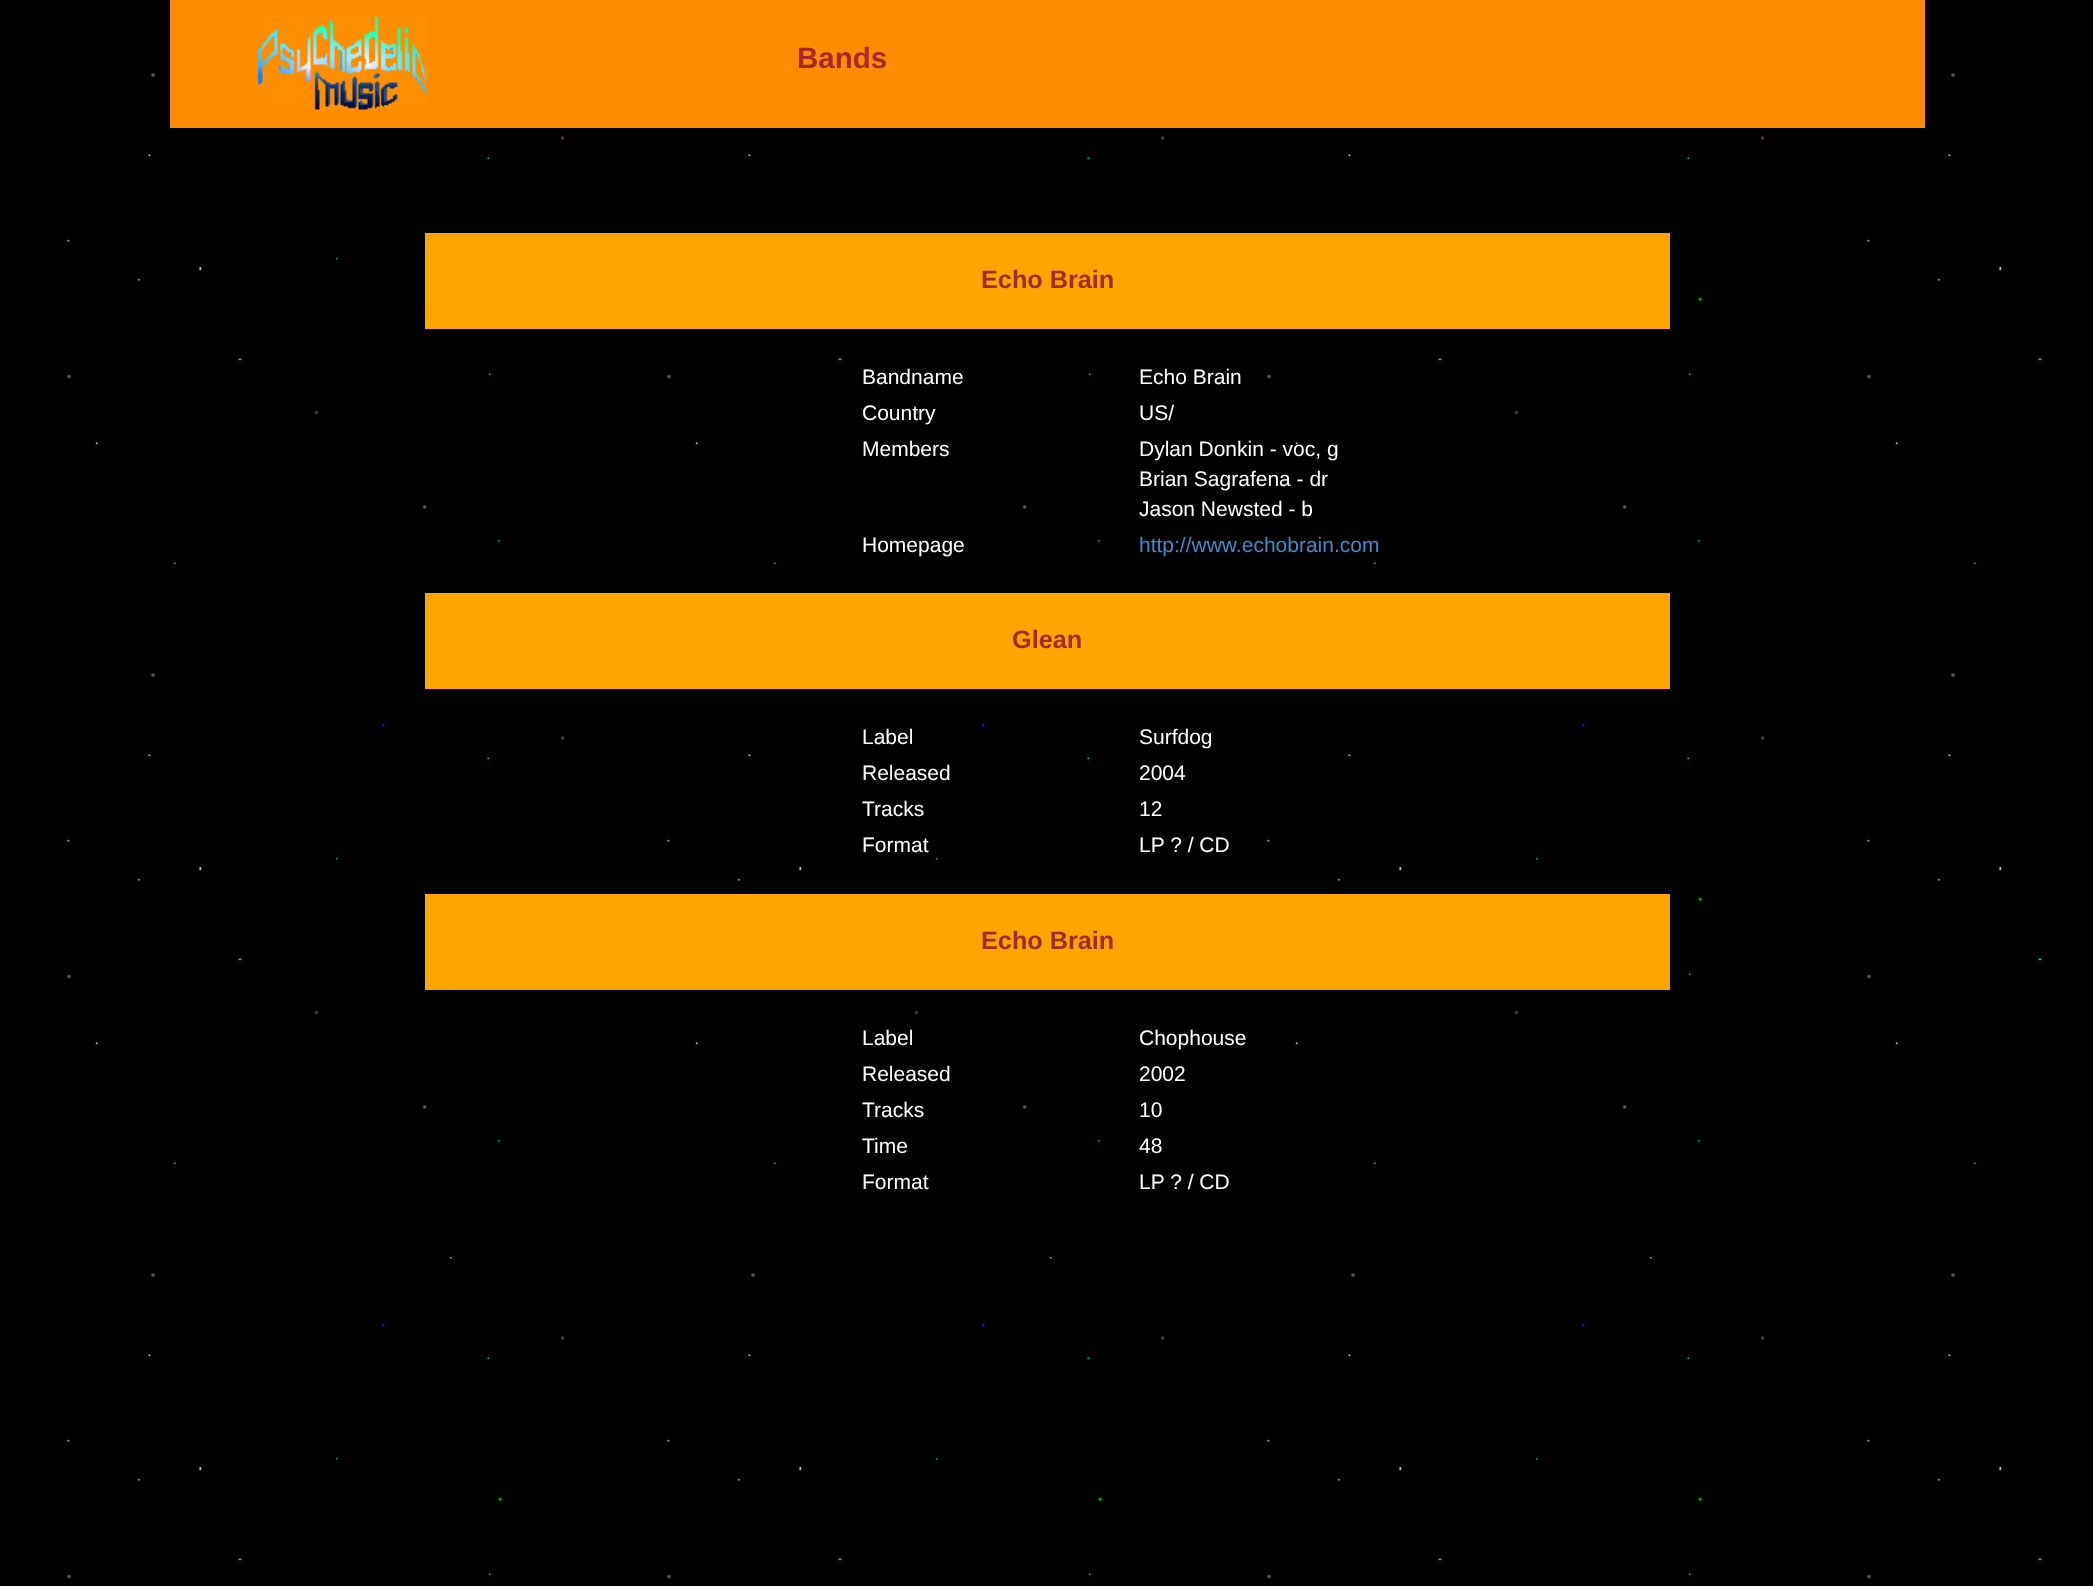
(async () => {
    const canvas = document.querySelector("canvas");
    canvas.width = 2093;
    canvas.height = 1586;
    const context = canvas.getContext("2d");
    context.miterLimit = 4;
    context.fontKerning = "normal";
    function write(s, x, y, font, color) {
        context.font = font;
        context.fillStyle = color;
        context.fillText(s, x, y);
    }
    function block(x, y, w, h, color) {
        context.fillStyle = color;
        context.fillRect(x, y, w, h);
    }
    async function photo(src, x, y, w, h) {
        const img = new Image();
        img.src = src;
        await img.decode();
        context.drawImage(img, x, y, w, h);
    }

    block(0, 0, 2093, 1586, "rgb(255, 255, 255)");
    await photo("media/1.png", 0, 0, 2093, 1586);
    block(170, 0, 1755, 128, "rgb(255, 140, 0)");
    await photo("media/2.png", 257, 16, 170, 94);
    write("Bands", 797, 68, "bold 29.5px Liberation Sans", "rgb(165, 42, 42)");
    block(425, 233, 1245, 96, "rgb(255, 165, 0)");
    write("Echo Brain", 981, 288, "bold 25.25px Liberation Sans", "rgb(165, 42, 42)");
    write("Bandname", 862, 384, "21px Liberation Sans", "rgb(255, 255, 255)");
    write("Echo Brain", 1139, 384, "21px Liberation Sans", "rgb(255, 255, 255)");
    write("Country", 862, 420, "21px Liberation Sans", "rgb(255, 255, 255)");
    write("US/", 1139, 420, "21px Liberation Sans", "rgb(255, 255, 255)");
    write("Members", 862, 456, "21px Liberation Sans", "rgb(255, 255, 255)");
    write("Dylan Donkin - voc, g", 1139, 456, "21px Liberation Sans", "rgb(255, 255, 255)");
    write("Brian Sagrafena - dr", 1139, 486, "21px Liberation Sans", "rgb(255, 255, 255)");
    write("Jason Newsted - b", 1139, 516, "21px Liberation Sans", "rgb(255, 255, 255)");
    write("Homepage", 862, 552, "21px Liberation Sans", "rgb(255, 255, 255)");
    write("http://www.echobrain.com", 1139, 552, "21px Liberation Sans", "rgb(66, 139, 202)");
    block(425, 593, 1245, 96, "rgb(255, 165, 0)");
    write("Glean", 1012, 648, "bold 25.25px Liberation Sans", "rgb(165, 42, 42)");
    write("Label", 862, 744, "21px Liberation Sans", "rgb(255, 255, 255)");
    write("Surfdog", 1139, 744, "21px Liberation Sans", "rgb(255, 255, 255)");
    write("Released", 862, 780, "21px Liberation Sans", "rgb(255, 255, 255)");
    write("2004", 1139, 780, "21px Liberation Sans", "rgb(255, 255, 255)");
    write("Tracks", 862, 816, "21px Liberation Sans", "rgb(255, 255, 255)");
    write("12", 1139, 816, "21px Liberation Sans", "rgb(255, 255, 255)");
    write("Format", 862, 852, "21px Liberation Sans", "rgb(255, 255, 255)");
    write("LP ? / CD", 1139, 852, "21px Liberation Sans", "rgb(255, 255, 255)");
    block(425, 894, 1245, 96, "rgb(255, 165, 0)");
    write("Echo Brain", 981, 949, "bold 25.25px Liberation Sans", "rgb(165, 42, 42)");
    write("Label", 862, 1045, "21px Liberation Sans", "rgb(255, 255, 255)");
    write("Chophouse", 1139, 1045, "21px Liberation Sans", "rgb(255, 255, 255)");
    write("Released", 862, 1081, "21px Liberation Sans", "rgb(255, 255, 255)");
    write("2002", 1139, 1081, "21px Liberation Sans", "rgb(255, 255, 255)");
    write("Tracks", 862, 1117, "21px Liberation Sans", "rgb(255, 255, 255)");
    write("10", 1139, 1117, "21px Liberation Sans", "rgb(255, 255, 255)");
    write("Time", 862, 1153, "21px Liberation Sans", "rgb(255, 255, 255)");
    write("48", 1139, 1153, "21px Liberation Sans", "rgb(255, 255, 255)");
    write("Format", 862, 1189, "21px Liberation Sans", "rgb(255, 255, 255)");
    write("LP ? / CD", 1139, 1189, "21px Liberation Sans", "rgb(255, 255, 255)");
})();
